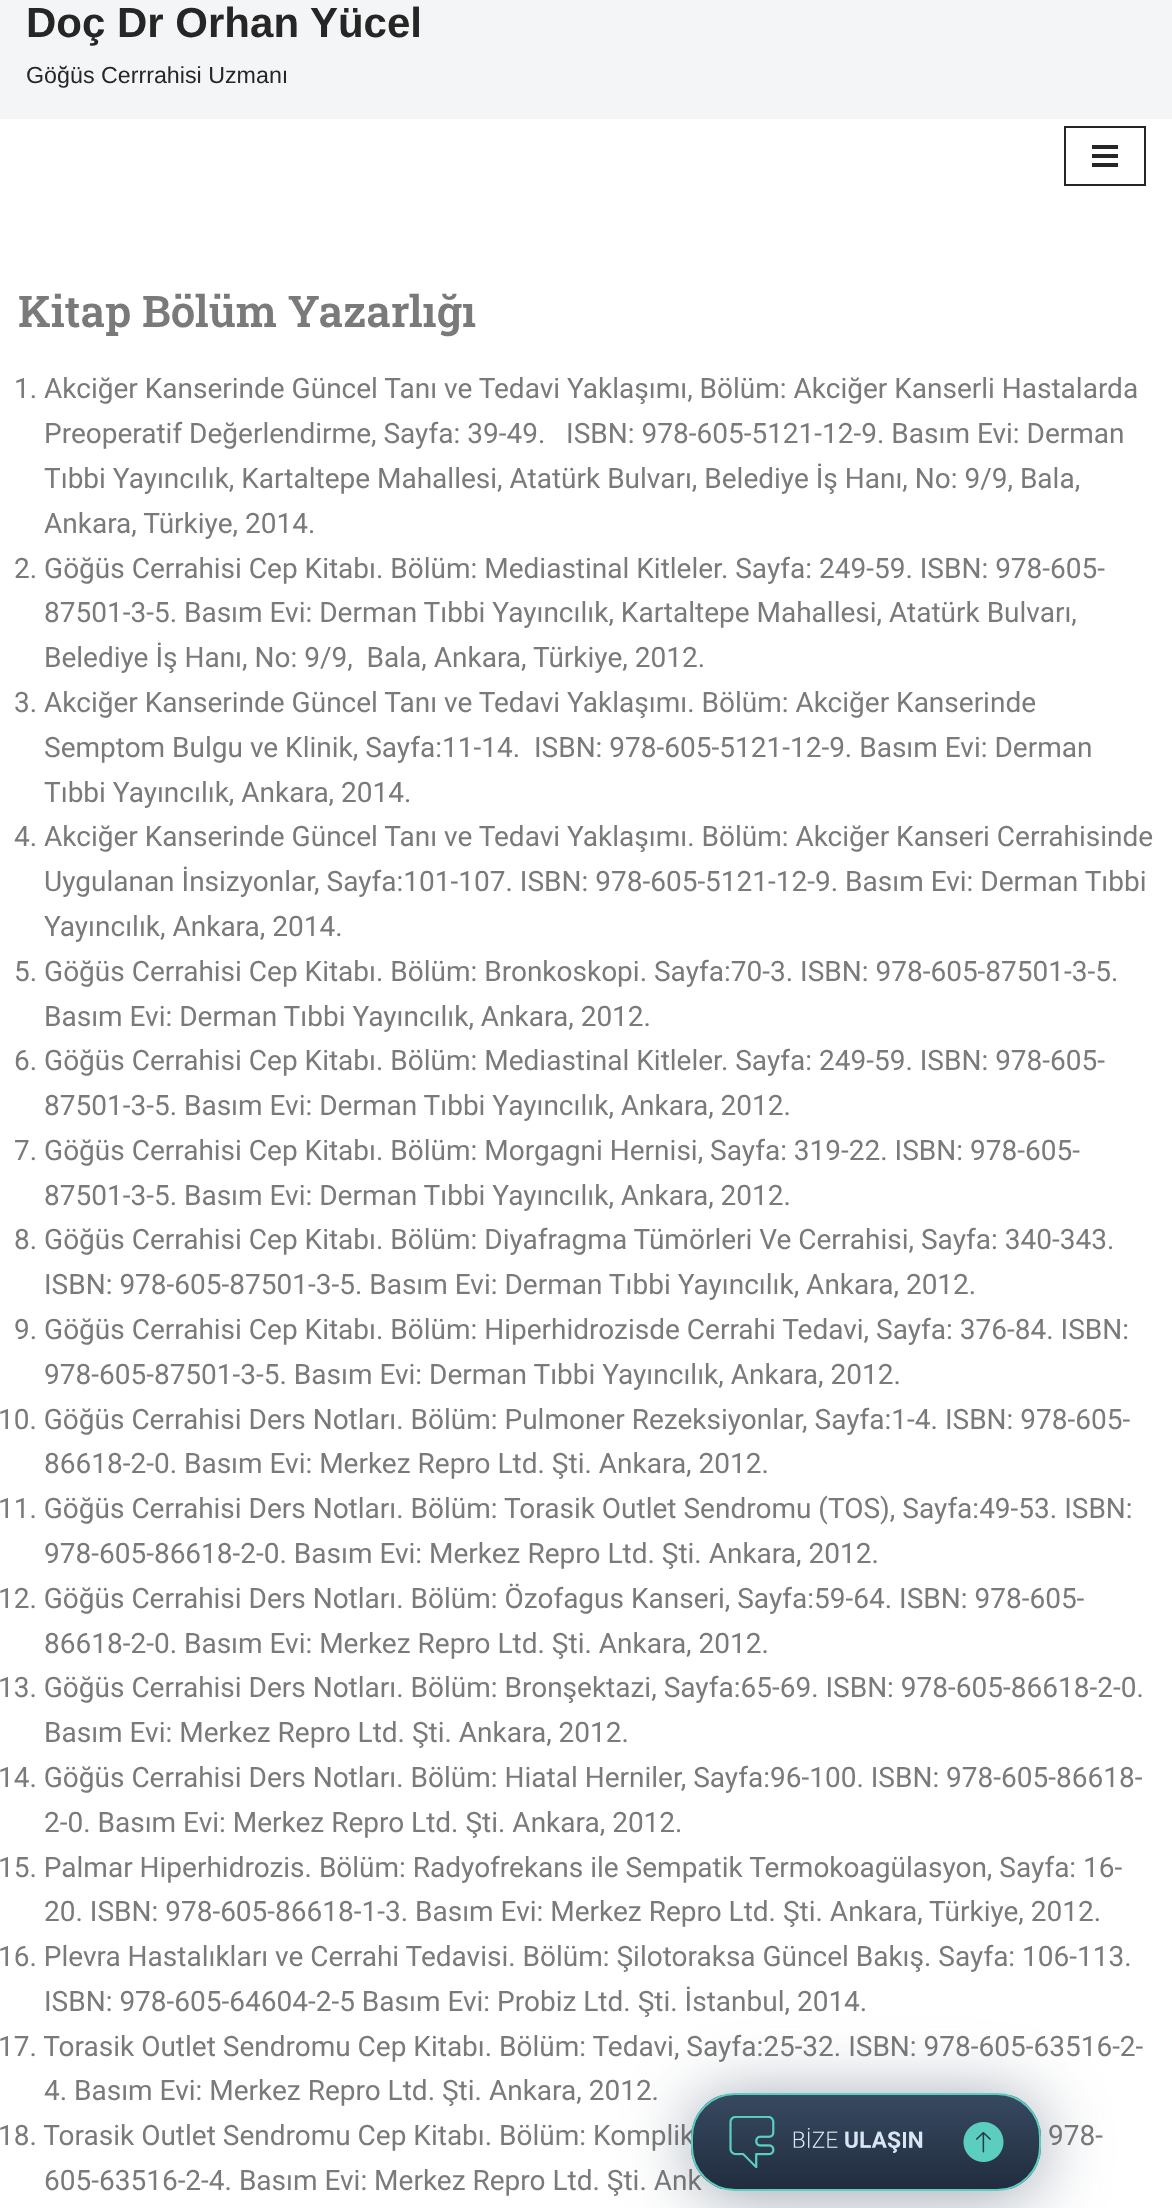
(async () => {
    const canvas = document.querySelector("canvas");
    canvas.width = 1172;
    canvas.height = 2208;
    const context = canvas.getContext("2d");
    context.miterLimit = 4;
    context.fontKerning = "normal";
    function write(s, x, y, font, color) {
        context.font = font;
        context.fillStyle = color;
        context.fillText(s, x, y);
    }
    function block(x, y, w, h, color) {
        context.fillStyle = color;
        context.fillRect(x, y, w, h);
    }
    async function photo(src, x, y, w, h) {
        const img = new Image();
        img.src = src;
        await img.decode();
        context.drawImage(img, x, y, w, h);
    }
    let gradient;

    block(0, 0, 1172, 2208, "rgb(255, 255, 255)");
    block(0, 0, 1172, 119, "rgb(244, 245, 247)");
    write("Doç Dr Orhan Yücel", 26, 37, "bold 42px Liberation Sans", "rgb(39, 38, 38)");
    write("Göğüs Cerrrahisi Uzmanı", 26, 83, "23.25px Liberation Sans", "rgb(39, 38, 38)");
    context.strokeStyle = "rgb(39, 38, 38)";
    context.lineWidth = 2;
    context.strokeRect(1065, 127, 80, 58);
    block(1092, 145, 26, 4, "rgb(39, 38, 38)");
    block(1092, 154, 26, 4, "rgb(39, 38, 38)");
    block(1092, 163, 26, 4, "rgb(39, 38, 38)");
    write("Kitap Bölüm Yazarlığı", 18, 327, "600 43.75px Roboto Slab", "rgb(122, 122, 122)");
    write("1. Akciğer Kanserinde Güncel Tanı ve Tedavi Yaklaşımı, Bölüm: Akciğer Kanserli Hastalarda", 14, 398, "28px Roboto", "rgb(122, 122, 122)");
    write("Preoperatif Değerlendirme, Sayfa: 39-49.   ISBN: 978-605-5121-12-9. Basım Evi: Derman", 44, 443, "28px Roboto", "rgb(122, 122, 122)");
    write("Tıbbi Yayıncılık, Kartaltepe Mahallesi, Atatürk Bulvarı, Belediye İş Hanı, No: 9/9, Bala,", 44, 488, "28px Roboto", "rgb(122, 122, 122)");
    write("Ankara, Türkiye, 2014.", 44, 533, "28px Roboto", "rgb(122, 122, 122)");
    write("2. Göğüs Cerrahisi Cep Kitabı. Bölüm: Mediastinal Kitleler. Sayfa: 249-59. ISBN: 978-605-", 14, 578, "28px Roboto", "rgb(122, 122, 122)");
    write("87501-3-5. Basım Evi: Derman Tıbbi Yayıncılık, Kartaltepe Mahallesi, Atatürk Bulvarı,", 44, 622, "28px Roboto", "rgb(122, 122, 122)");
    write("Belediye İş Hanı, No: 9/9,  Bala, Ankara, Türkiye, 2012.", 44, 667, "28px Roboto", "rgb(122, 122, 122)");
    write("3. Akciğer Kanserinde Güncel Tanı ve Tedavi Yaklaşımı. Bölüm: Akciğer Kanserinde", 14, 712, "28px Roboto", "rgb(122, 122, 122)");
    write("Semptom Bulgu ve Klinik, Sayfa:11-14.  ISBN: 978-605-5121-12-9. Basım Evi: Derman", 44, 757, "28px Roboto", "rgb(122, 122, 122)");
    write("Tıbbi Yayıncılık, Ankara, 2014.", 44, 802, "28px Roboto", "rgb(122, 122, 122)");
    write("4. Akciğer Kanserinde Güncel Tanı ve Tedavi Yaklaşımı. Bölüm: Akciğer Kanseri Cerrahisinde", 14, 846, "28px Roboto", "rgb(122, 122, 122)");
    write("Uygulanan İnsizyonlar, Sayfa:101-107. ISBN: 978-605-5121-12-9. Basım Evi: Derman Tıbbi", 44, 891, "28px Roboto", "rgb(122, 122, 122)");
    write("Yayıncılık, Ankara, 2014.", 44, 936, "28px Roboto", "rgb(122, 122, 122)");
    write("5. Göğüs Cerrahisi Cep Kitabı. Bölüm: Bronkoskopi. Sayfa:70-3. ISBN: 978-605-87501-3-5.", 14, 981, "28px Roboto", "rgb(122, 122, 122)");
    write("Basım Evi: Derman Tıbbi Yayıncılık, Ankara, 2012.", 44, 1026, "28px Roboto", "rgb(122, 122, 122)");
    write("6. Göğüs Cerrahisi Cep Kitabı. Bölüm: Mediastinal Kitleler. Sayfa: 249-59. ISBN: 978-605-", 14, 1070, "28px Roboto", "rgb(122, 122, 122)");
    write("87501-3-5. Basım Evi: Derman Tıbbi Yayıncılık, Ankara, 2012.", 44, 1115, "28px Roboto", "rgb(122, 122, 122)");
    write("7. Göğüs Cerrahisi Cep Kitabı. Bölüm: Morgagni Hernisi, Sayfa: 319-22. ISBN: 978-605-", 14, 1160, "28px Roboto", "rgb(122, 122, 122)");
    write("87501-3-5. Basım Evi: Derman Tıbbi Yayıncılık, Ankara, 2012.", 44, 1205, "28px Roboto", "rgb(122, 122, 122)");
    write("8. Göğüs Cerrahisi Cep Kitabı. Bölüm: Diyafragma Tümörleri Ve Cerrahisi, Sayfa: 340-343.", 14, 1249, "28px Roboto", "rgb(122, 122, 122)");
    write("ISBN: 978-605-87501-3-5. Basım Evi: Derman Tıbbi Yayıncılık, Ankara, 2012.", 44, 1294, "28px Roboto", "rgb(122, 122, 122)");
    write("9. Göğüs Cerrahisi Cep Kitabı. Bölüm: Hiperhidrozisde Cerrahi Tedavi, Sayfa: 376-84. ISBN:", 14, 1339, "28px Roboto", "rgb(122, 122, 122)");
    write("978-605-87501-3-5. Basım Evi: Derman Tıbbi Yayıncılık, Ankara, 2012.", 44, 1384, "28px Roboto", "rgb(122, 122, 122)");
    write("10. Göğüs Cerrahisi Ders Notları. Bölüm: Pulmoner Rezeksiyonlar, Sayfa:1-4. ISBN: 978-605-", -2, 1429, "28px Roboto", "rgb(122, 122, 122)");
    write("86618-2-0. Basım Evi: Merkez Repro Ltd. Şti. Ankara, 2012.", 44, 1473, "28px Roboto", "rgb(122, 122, 122)");
    write("11. Göğüs Cerrahisi Ders Notları. Bölüm: Torasik Outlet Sendromu (TOS), Sayfa:49-53. ISBN:", -2, 1518, "28px Roboto", "rgb(122, 122, 122)");
    write("978-605-86618-2-0. Basım Evi: Merkez Repro Ltd. Şti. Ankara, 2012.", 44, 1563, "28px Roboto", "rgb(122, 122, 122)");
    write("12. Göğüs Cerrahisi Ders Notları. Bölüm: Özofagus Kanseri, Sayfa:59-64. ISBN: 978-605-", -2, 1608, "28px Roboto", "rgb(122, 122, 122)");
    write("86618-2-0. Basım Evi: Merkez Repro Ltd. Şti. Ankara, 2012.", 44, 1653, "28px Roboto", "rgb(122, 122, 122)");
    write("13. Göğüs Cerrahisi Ders Notları. Bölüm: Bronşektazi, Sayfa:65-69. ISBN: 978-605-86618-2-0.", -2, 1697, "28px Roboto", "rgb(122, 122, 122)");
    write("Basım Evi: Merkez Repro Ltd. Şti. Ankara, 2012.", 44, 1742, "28px Roboto", "rgb(122, 122, 122)");
    write("14. Göğüs Cerrahisi Ders Notları. Bölüm: Hiatal Herniler, Sayfa:96-100. ISBN: 978-605-86618-", -2, 1787, "28px Roboto", "rgb(122, 122, 122)");
    write("2-0. Basım Evi: Merkez Repro Ltd. Şti. Ankara, 2012.", 44, 1832, "28px Roboto", "rgb(122, 122, 122)");
    write("15. Palmar Hiperhidrozis. Bölüm: Radyofrekans ile Sempatik Termokoagülasyon, Sayfa: 16-", -2, 1877, "28px Roboto", "rgb(122, 122, 122)");
    write("20. ISBN: 978-605-86618-1-3. Basım Evi: Merkez Repro Ltd. Şti. Ankara, Türkiye, 2012.", 44, 1921, "28px Roboto", "rgb(122, 122, 122)");
    write("16. Plevra Hastalıkları ve Cerrahi Tedavisi. Bölüm: Şilotoraksa Güncel Bakış. Sayfa: 106-113.", -2, 1966, "28px Roboto", "rgb(122, 122, 122)");
    write("ISBN: 978-605-64604-2-5 Basım Evi: Probiz Ltd. Şti. İstanbul, 2014.", 44, 2011, "28px Roboto", "rgb(122, 122, 122)");
    write("17. Torasik Outlet Sendromu Cep Kitabı. Bölüm: Tedavi, Sayfa:25-32. ISBN: 978-605-63516-2-", -2, 2056, "28px Roboto", "rgb(122, 122, 122)");
    write("4. Basım Evi: Merkez Repro Ltd. Şti. Ankara, 2012.", 44, 2100, "28px Roboto", "rgb(122, 122, 122)");
    write("18. Torasik Outlet Sendromu Cep Kitabı. Bölüm: Komplik", -2, 2145, "28px Roboto", "rgb(122, 122, 122)");
    write("978-", 1048, 2145, "28px Roboto", "rgb(122, 122, 122)");
    write("605-63516-2-4. Basım Evi: Merkez Repro Ltd. Şti. Ank", 44, 2190, "28px Roboto", "rgb(122, 122, 122)");
    context.fillStyle = "rgba(54, 72, 95, 0.5)";
    context.filter = "blur(35px)";
    context.beginPath();
    context.roundRect(691, 2098, 350, 98, 44);
    context.fill();
    context.filter = "none";
    context.save();
    context.beginPath();
    context.roundRect(691, 2093, 350, 98, 44);
    context.clip();
    gradient = context.createLinearGradient(866, 2095, 866, 2189);
    gradient.addColorStop(0, "rgb(55, 73, 96)");
    gradient.addColorStop(1, "rgb(33, 45, 63)");
    context.fillStyle = gradient;
    context.fillRect(691, 2095, 350, 94);
    context.restore();
    context.beginPath();
    context.roundRect(692, 2094, 348, 96, 43);
    context.strokeStyle = "rgb(92, 206, 191)";
    context.stroke();
    await photo("media/1.png", 729, 2116, 275, 52);
})();
